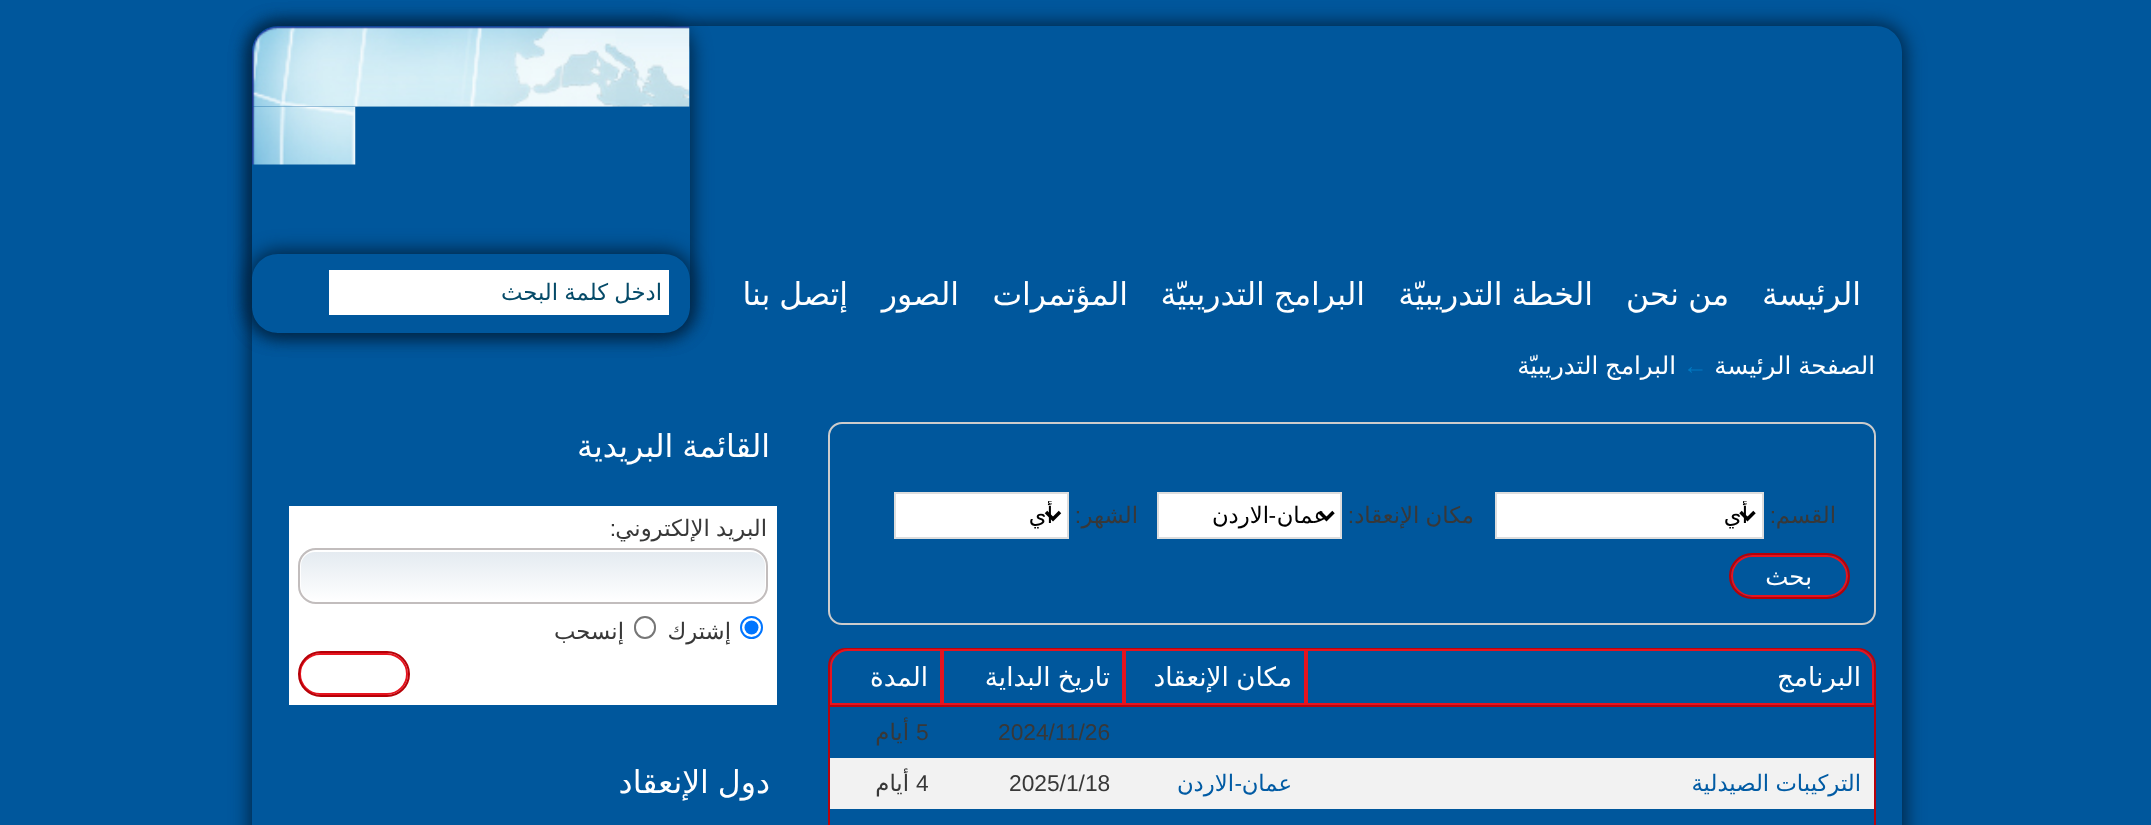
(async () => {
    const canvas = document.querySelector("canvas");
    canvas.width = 2151;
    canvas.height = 825;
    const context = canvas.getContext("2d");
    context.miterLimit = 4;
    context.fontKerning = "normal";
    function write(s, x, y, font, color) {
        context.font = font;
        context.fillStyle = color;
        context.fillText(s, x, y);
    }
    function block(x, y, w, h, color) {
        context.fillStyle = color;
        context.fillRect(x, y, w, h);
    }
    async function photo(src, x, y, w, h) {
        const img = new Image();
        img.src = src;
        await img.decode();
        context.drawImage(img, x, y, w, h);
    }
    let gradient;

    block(0, 0, 2151, 825, "rgb(0, 87, 156)");
    context.save();
    context.beginPath();
    context.moveTo(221, 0);
    context.lineTo(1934, 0);
    context.lineTo(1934, 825);
    context.lineTo(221, 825);
    context.closePath();
    context.moveTo(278, 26);
    context.lineTo(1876, 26);
    context.bezierCurveTo(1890.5, 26, 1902, 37.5, 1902, 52);
    context.lineTo(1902, 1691);
    context.bezierCurveTo(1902, 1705.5, 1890.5, 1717, 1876, 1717);
    context.lineTo(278, 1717);
    context.bezierCurveTo(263.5, 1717, 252, 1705.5, 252, 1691);
    context.lineTo(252, 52);
    context.bezierCurveTo(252, 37.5, 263.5, 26, 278, 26);
    context.closePath();
    context.clip("evenodd");
    context.fillStyle = "rgb(0, 38, 71)";
    context.filter = "blur(9px)";
    context.beginPath();
    context.roundRect(249, 23, 1657, 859, 30);
    context.fill();
    context.filter = "none";
    context.restore();
    context.direction = "rtl";
    write("الرئيسة", 1861, 305, "31.5px DejaVu Sans", "rgb(255, 255, 255)");
    context.wordSpacing = "-1px";
    write("من نحن", 1729, 305, "31.5px DejaVu Sans", "rgb(255, 255, 255)");
    write("الخطة التدريبيّة", 1593, 305, "31.5px DejaVu Sans", "rgb(255, 255, 255)");
    write("البرامج التدريبيّة", 1365, 305, "31.5px DejaVu Sans", "rgb(255, 255, 255)");
    context.wordSpacing = "0px";
    write("المؤتمرات", 1128, 305, "31.5px DejaVu Sans", "rgb(255, 255, 255)");
    write("الصور", 959, 305, "31.5px DejaVu Sans", "rgb(255, 255, 255)");
    context.wordSpacing = "-1px";
    write("إتصل بنا", 848, 305, "31.5px DejaVu Sans", "rgb(255, 255, 255)");
    context.save();
    context.beginPath();
    context.moveTo(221, 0);
    context.lineTo(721, 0);
    context.lineTo(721, 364);
    context.lineTo(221, 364);
    context.closePath();
    context.moveTo(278, 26);
    context.lineTo(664, 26);
    context.bezierCurveTo(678.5, 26, 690, 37.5, 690, 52);
    context.lineTo(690, 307);
    context.bezierCurveTo(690, 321.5, 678.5, 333, 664, 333);
    context.lineTo(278, 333);
    context.bezierCurveTo(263.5, 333, 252, 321.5, 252, 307);
    context.lineTo(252, 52);
    context.bezierCurveTo(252, 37.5, 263.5, 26, 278, 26);
    context.closePath();
    context.clip("evenodd");
    context.fillStyle = "rgb(0, 38, 71)";
    context.filter = "blur(9px)";
    context.beginPath();
    context.roundRect(249, 23, 444, 313, 30);
    context.fill();
    context.filter = "none";
    context.restore();
    await photo("media/1.png", 252, 26, 438, 81);
    await photo("media/2.png", 252, 106, 104, 59);
    context.save();
    context.beginPath();
    context.moveTo(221, 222);
    context.lineTo(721, 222);
    context.lineTo(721, 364);
    context.lineTo(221, 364);
    context.closePath();
    context.moveTo(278, 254);
    context.lineTo(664, 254);
    context.bezierCurveTo(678.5, 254, 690, 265.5, 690, 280);
    context.lineTo(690, 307);
    context.bezierCurveTo(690, 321.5, 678.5, 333, 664, 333);
    context.lineTo(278, 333);
    context.bezierCurveTo(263.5, 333, 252, 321.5, 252, 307);
    context.lineTo(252, 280);
    context.bezierCurveTo(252, 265.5, 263.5, 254, 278, 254);
    context.closePath();
    context.clip("evenodd");
    context.fillStyle = "rgb(0, 38, 71)";
    context.filter = "blur(9px)";
    context.beginPath();
    context.roundRect(249, 250, 444, 86, 30);
    context.fill();
    context.filter = "none";
    context.restore();
    block(329, 270, 340, 45, "rgb(255, 255, 255)");
    write("ادخل كلمة البحث", 662, 300, "22.75px DejaVu Sans", "rgb(5, 74, 104)");
    write("الصفحة الرئيسة", 1875, 374, "24.5px DejaVu Sans", "rgb(255, 255, 255)");
    context.wordSpacing = "0px";
    context.direction = "ltr";
    write("←", 1683, 374, "24.5px Liberation Sans", "rgb(0, 121, 194)");
    context.wordSpacing = "-1px";
    context.direction = "rtl";
    write("البرامج التدريبيّة", 1676, 374, "24.5px DejaVu Sans", "rgb(255, 255, 255)");
    context.beginPath();
    context.roundRect(829, 423, 1046, 201, 13);
    context.strokeStyle = "rgb(204, 204, 204)";
    context.lineWidth = 2;
    context.stroke();
    context.wordSpacing = "0px";
    write("القسم", 1836, 523, "22.75px DejaVu Sans", "rgb(56, 56, 56)");
    write(":", 1776, 523, "22.75px Liberation Sans", "rgb(56, 56, 56)");
    context.fillStyle = "rgb(255, 255, 255)";
    context.beginPath();
    context.rect(1496, 493, 267, 45);
    context.fill();
    context.strokeStyle = "rgb(221, 221, 221)";
    context.stroke();
    context.beginPath();
    context.moveTo(1740.5, 512);
    context.lineTo(1747.5, 519);
    context.lineTo(1754.5, 512);
    context.strokeStyle = "rgb(0, 0, 0)";
    context.lineWidth = 3.5;
    context.stroke();
    context.save();
    context.beginPath();
    context.rect(1531, 501, 217, 29);
    context.clip();
    write("أي", 1748, 523, "22.75px DejaVu Sans", "rgb(0, 0, 0)");
    context.restore();
    context.wordSpacing = "-1px";
    write("مكان الإنعقاد", 1474, 523, "22.75px DejaVu Sans", "rgb(56, 56, 56)");
    context.wordSpacing = "0px";
    write(":", 1354, 523, "22.75px Liberation Sans", "rgb(56, 56, 56)");
    context.fillStyle = "rgb(255, 255, 255)";
    context.beginPath();
    context.rect(1158, 493, 183, 45);
    context.fill();
    context.strokeStyle = "rgb(221, 221, 221)";
    context.lineWidth = 2;
    context.stroke();
    context.beginPath();
    context.moveTo(1319.5, 512);
    context.lineTo(1326.5, 519);
    context.lineTo(1333.5, 512);
    context.strokeStyle = "rgb(0, 0, 0)";
    context.lineWidth = 3.5;
    context.stroke();
    write("عمان", 1327, 523, "22.75px DejaVu Sans", "rgb(0, 0, 0)");
    write("-", 1276, 523, "22.75px Liberation Sans", "rgb(0, 0, 0)");
    write("الاردن", 1269, 523, "22.75px DejaVu Sans", "rgb(0, 0, 0)");
    write("الشهر", 1138, 523, "22.75px DejaVu Sans", "rgb(56, 56, 56)");
    write(":", 1081, 523, "22.75px Liberation Sans", "rgb(56, 56, 56)");
    context.fillStyle = "rgb(255, 255, 255)";
    context.beginPath();
    context.rect(895, 493, 173, 45);
    context.fill();
    context.strokeStyle = "rgb(221, 221, 221)";
    context.lineWidth = 2;
    context.stroke();
    context.beginPath();
    context.moveTo(1046, 512);
    context.lineTo(1053, 519);
    context.lineTo(1060, 512);
    context.strokeStyle = "rgb(0, 0, 0)";
    context.lineWidth = 3.5;
    context.stroke();
    context.save();
    context.beginPath();
    context.rect(931, 501, 123, 29);
    context.clip();
    write("أي", 1053, 523, "22.75px DejaVu Sans", "rgb(0, 0, 0)");
    context.restore();
    context.beginPath();
    context.roundRect(1732, 556, 115, 40, 20);
    context.strokeStyle = "rgb(230, 20, 31)";
    context.lineWidth = 2;
    context.stroke();
    context.beginPath();
    context.roundRect(1730, 554, 119, 44, 22);
    context.strokeStyle = "rgb(182, 0, 7)";
    context.stroke();
    write("بحث", 1812, 585, "24.5px DejaVu Sans", "rgb(255, 255, 255)");
    context.beginPath();
    context.roundRect(829, 649, 1046, 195, 17);
    context.strokeStyle = "rgb(184, 4, 13)";
    context.stroke();
    context.beginPath();
    context.roundRect(1307, 650, 566, 54, [0, 17, 0, 0]);
    context.strokeStyle = "rgb(230, 20, 31)";
    context.stroke();
    block(830, 705, 1044, 2, "rgb(184, 4, 13)");
    write("البرنامج", 1861, 686, "26.25px DejaVu Sans", "rgb(255, 255, 255)");
    context.strokeRect(1125, 650, 180, 54);
    context.wordSpacing = "-1px";
    write("مكان الإنعقاد", 1292, 686, "26.25px DejaVu Sans", "rgb(255, 255, 255)");
    context.strokeRect(943, 650, 180, 54);
    write("تاريخ البداية", 1110, 686, "26.25px DejaVu Sans", "rgb(255, 255, 255)");
    context.beginPath();
    context.roundRect(831, 650, 110, 54, [17, 0, 0, 0]);
    context.stroke();
    context.wordSpacing = "0px";
    write("المدة", 928, 686, "26.25px DejaVu Sans", "rgb(255, 255, 255)");
    context.direction = "ltr";
    write("2024/11/26", 998, 740, "22.75px Liberation Sans", "rgb(56, 56, 56)");
    write("5", 916, 740, "22.75px Liberation Sans", "rgb(56, 56, 56)");
    context.direction = "rtl";
    write("أيام", 909, 740, "22.75px DejaVu Sans", "rgb(56, 56, 56)");
    block(830, 758, 1044, 51, "rgb(242, 242, 242)");
    context.wordSpacing = "-1px";
    write("التركيبات الصيدلية", 1861, 791, "22.75px DejaVu Sans", "rgb(1, 91, 164)");
    context.wordSpacing = "0px";
    write("عمان", 1292, 791, "22.75px DejaVu Sans", "rgb(1, 91, 164)");
    write("-", 1242, 791, "22.75px Liberation Sans", "rgb(1, 91, 164)");
    write("الاردن", 1234, 791, "22.75px DejaVu Sans", "rgb(1, 91, 164)");
    context.direction = "ltr";
    write("2025/1/18", 1009, 791, "22.75px Liberation Sans", "rgb(56, 56, 56)");
    write("4", 916, 791, "22.75px Liberation Sans", "rgb(56, 56, 56)");
    context.direction = "rtl";
    write("أيام", 909, 791, "22.75px DejaVu Sans", "rgb(56, 56, 56)");
    context.wordSpacing = "-1px";
    write("القائمة البريدية", 770, 457, "31.5px DejaVu Sans", "rgb(255, 255, 255)");
    block(289, 506, 488, 199, "rgb(255, 255, 255)");
    write("البريد الإلكتروني", 767, 536, "22.75px DejaVu Sans", "rgb(56, 56, 56)");
    context.wordSpacing = "0px";
    write(":", 616, 536, "22.75px Liberation Sans", "rgb(56, 56, 56)");
    context.save();
    context.beginPath();
    context.roundRect(298, 548, 470, 56, 18);
    context.clip();
    gradient = context.createLinearGradient(299, 550, 299, 602);
    gradient.addColorStop(0, "rgb(227, 234, 240)");
    gradient.addColorStop(1, "rgb(255, 255, 255)");
    context.fillStyle = gradient;
    context.fillRect(298, 550, 470, 52);
    context.restore();
    context.beginPath();
    context.roundRect(300, 551, 466, 50, 15);
    context.strokeStyle = "rgb(255, 255, 255)";
    context.stroke();
    context.beginPath();
    context.roundRect(299, 549, 468, 54, 17);
    context.strokeStyle = "rgb(194, 189, 189)";
    context.stroke();
    context.beginPath();
    context.arc(751.5, 627.5, 10.5, 0, Math.PI * 2);
    context.strokeStyle = "rgb(0, 117, 255)";
    context.stroke();
    context.fillStyle = "rgb(0, 117, 255)";
    context.beginPath();
    context.arc(751.5, 627.5, 7, 0, Math.PI * 2);
    context.fill();
    write("إشترك", 731, 639, "22.75px DejaVu Sans", "rgb(56, 56, 56)");
    context.beginPath();
    context.roundRect(635, 617, 20, 21, 10);
    context.strokeStyle = "rgb(118, 118, 118)";
    context.stroke();
    write("إنسحب", 624, 639, "22.75px DejaVu Sans", "rgb(56, 56, 56)");
    context.beginPath();
    context.roundRect(300, 654, 107, 40, 20);
    context.strokeStyle = "rgb(230, 20, 31)";
    context.stroke();
    context.beginPath();
    context.roundRect(299, 652, 110, 44, 22);
    context.strokeStyle = "rgb(182, 0, 7)";
    context.stroke();
    context.wordSpacing = "-1px";
    write("دول الإنعقاد", 770, 793, "31.5px DejaVu Sans", "rgb(255, 255, 255)");
})();
